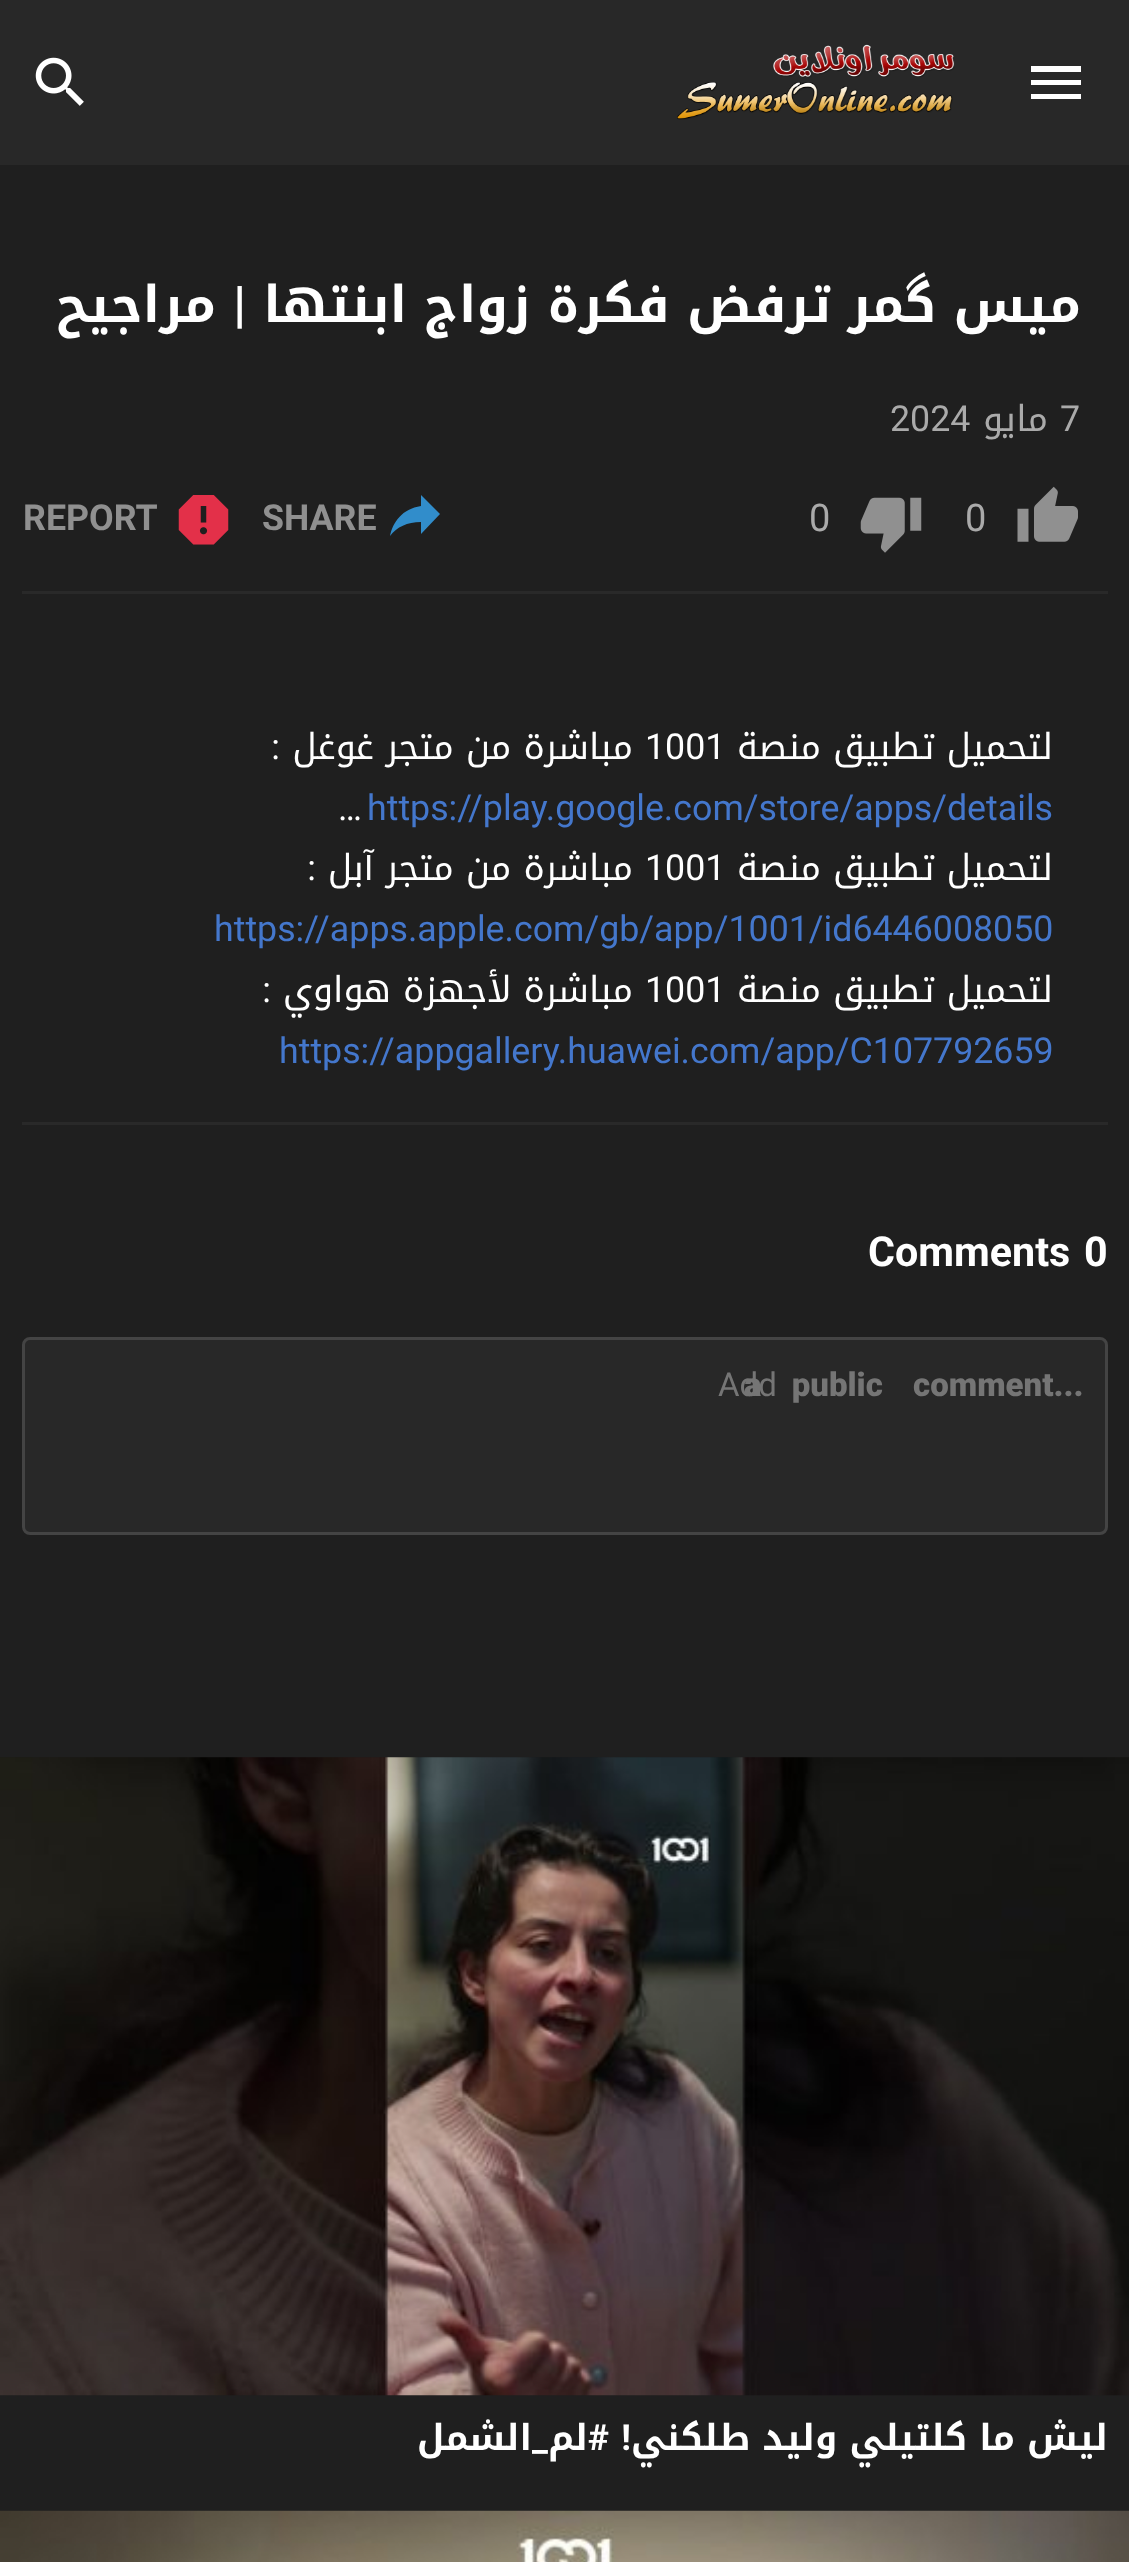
(async () => {
    const canvas = document.querySelector("canvas");
    canvas.width = 1129;
    canvas.height = 2562;
    const context = canvas.getContext("2d");
    context.miterLimit = 4;
    context.fontKerning = "normal";
    function write(s, x, y, font, color) {
        context.font = font;
        context.fillStyle = color;
        context.fillText(s, x, y);
    }
    function block(x, y, w, h, color) {
        context.fillStyle = color;
        context.fillRect(x, y, w, h);
    }
    async function photo(src, x, y, w, h) {
        const img = new Image();
        img.src = src;
        await img.decode();
        context.drawImage(img, x, y, w, h);
    }

    block(0, 0, 1129, 2562, "rgb(31, 31, 31)");
    block(0, 0, 1129, 165, "rgb(40, 40, 40)");
    await photo("media/1.png", 35, 57, 49, 49);
    await photo("media/2.png", 677, 44, 278, 76);
    context.fillStyle = "rgb(255, 255, 255)";
    context.beginPath();
    context.moveTo(1031, 66);
    context.lineTo(1081, 66);
    context.lineTo(1081, 72);
    context.lineTo(1031, 72);
    context.lineTo(1031, 66);
    context.moveTo(1031, 80);
    context.lineTo(1081, 80);
    context.lineTo(1081, 85);
    context.lineTo(1031, 85);
    context.lineTo(1031, 80);
    context.moveTo(1031, 94);
    context.lineTo(1081, 94);
    context.lineTo(1081, 99);
    context.lineTo(1031, 99);
    context.closePath();
    context.fill();
    context.direction = "rtl";
    write("مراجيح", 216, 322, "bold 50.6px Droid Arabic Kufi", "rgb(255, 255, 255)");
    write("|", 246, 322, "bold 50.6px Roboto", "rgb(255, 255, 255)");
    write("ميس گمر ترفض فكرة زواج ابنتها", 1081, 322, "bold 50.6px Droid Arabic Kufi", "rgb(255, 255, 255)");
    block(22, 591, 1086, 3, "rgb(41, 41, 41)");
    context.direction = "ltr";
    write("2024", 890, 431, "35.75px Roboto", "rgb(170, 170, 170)");
    context.direction = "rtl";
    write("مايو", 1048, 431, "35.75px Droid Arabic Kufi", "rgb(170, 170, 170)");
    context.direction = "ltr";
    write("7", 1060, 431, "35.75px Roboto", "rgb(170, 170, 170)");
    write("REPORT", 23, 530, "bold 35.75px Roboto", "rgb(144, 144, 144)");
    await photo("media/3.png", 178, 495, 51, 50);
    write("SHARE", 262, 530, "bold 35.75px Roboto", "rgb(144, 144, 144)");
    context.fillStyle = "rgb(49, 141, 203)";
    context.beginPath();
    context.moveTo(440, 514);
    context.lineTo(421, 495);
    context.lineTo(421, 506);
    context.bezierCurveTo(402, 509, 393, 522, 390, 536);
    context.bezierCurveTo(397, 527, 407, 522, 421, 522);
    context.lineTo(421, 534);
    context.closePath();
    context.fill();
    write("0", 809, 531, "38px Roboto", "rgb(170, 170, 170)");
    await photo("media/4.png", 860, 497, 62, 56);
    write("0", 965, 531, "38px Roboto", "rgb(170, 170, 170)");
    await photo("media/5.png", 1017, 486, 61, 56);
    block(22, 1122, 1086, 3, "rgb(41, 41, 41)");
    context.direction = "rtl";
    write(":", 280, 759, "35.75px Roboto", "rgb(255, 255, 255)");
    write("مباشرة من متجر غوغل", 633, 759, "35.75px Droid Arabic Kufi", "rgb(255, 255, 255)");
    context.direction = "ltr";
    write("1001", 645, 759, "35.75px Roboto", "rgb(255, 255, 255)");
    context.direction = "rtl";
    write("لتحميل تطبيق منصة", 1053, 759, "35.75px Droid Arabic Kufi", "rgb(255, 255, 255)");
    context.direction = "ltr";
    write("…", 338, 820, "35.75px Roboto", "rgb(255, 255, 255)");
    write("https://play.google.com/store/apps/details", 367, 820, "35.75px Roboto", "rgb(68, 119, 204)");
    context.direction = "rtl";
    write(":", 316, 880, "35.75px Roboto", "rgb(255, 255, 255)");
    write("مباشرة من متجر آبل", 633, 880, "35.75px Droid Arabic Kufi", "rgb(255, 255, 255)");
    context.direction = "ltr";
    write("1001", 645, 880, "35.75px Roboto", "rgb(255, 255, 255)");
    context.direction = "rtl";
    write("لتحميل تطبيق منصة", 1053, 880, "35.75px Droid Arabic Kufi", "rgb(255, 255, 255)");
    context.direction = "ltr";
    write("https://apps.apple.com/gb/app/1001/id6446008050", 214, 941, "35.75px Roboto", "rgb(68, 119, 204)");
    context.direction = "rtl";
    write(":", 271, 1002, "35.75px Roboto", "rgb(255, 255, 255)");
    write("مباشرة لأجهزة هواوي", 633, 1002, "35.75px Droid Arabic Kufi", "rgb(255, 255, 255)");
    context.direction = "ltr";
    write("1001", 645, 1002, "35.75px Roboto", "rgb(255, 255, 255)");
    context.direction = "rtl";
    write("لتحميل تطبيق منصة", 1053, 1002, "35.75px Droid Arabic Kufi", "rgb(255, 255, 255)");
    context.direction = "ltr";
    write("https://appgallery.huawei.com/app/C107792659", 279, 1063, "35.75px Roboto", "rgb(68, 119, 204)");
    write("Comments", 868, 1266, "bold 41.25px Roboto", "rgb(255, 255, 255)");
    write("0", 1084, 1266, "bold 41.25px Roboto", "rgb(255, 255, 255)");
    context.fillStyle = "rgb(40, 40, 40)";
    context.beginPath();
    context.roundRect(23.5, 1338.5, 1083, 195, 6.5);
    context.fill();
    context.strokeStyle = "rgb(68, 68, 68)";
    context.lineWidth = 3;
    context.stroke();
    write("Add", 718, 1396, "33px Roboto", "rgb(117, 117, 117)");
    context.wordSpacing = "22px";
    write("a public comment...", 744, 1396, "900 33px Roboto", "rgb(117, 117, 117)");
    await photo("media/6.png", 0, 1757, 1129, 639);
    context.wordSpacing = "0px";
    context.direction = "rtl";
    write("الشمل", 532, 2450, "bold 35.75px Droid Arabic Kufi", "rgb(255, 255, 255)");
    write("لم", 588, 2450, "bold 35.75px Droid Arabic Kufi", "rgb(255, 255, 255)");
    write("#", 609, 2450, "bold 35.75px Roboto", "rgb(255, 255, 255)");
    write("!", 631, 2450, "bold 35.75px Roboto", "rgb(255, 255, 255)");
    write("ليش ما كلتيلي وليد طلكني", 1108, 2450, "bold 35.75px Droid Arabic Kufi", "rgb(255, 255, 255)");
    write("_", 548, 2450, "bold 35.75px Roboto", "rgb(255, 255, 255)");
    await photo("media/7.png", 0, 2510, 1129, 52);
})();
